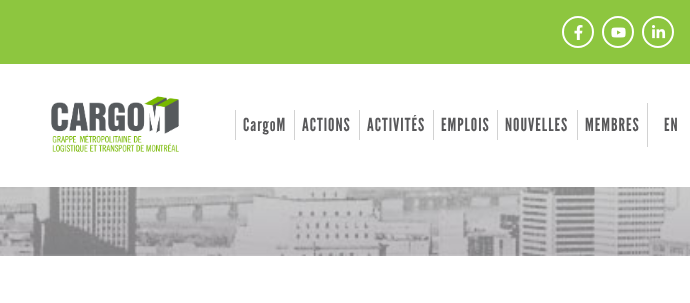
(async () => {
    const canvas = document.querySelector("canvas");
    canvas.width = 690;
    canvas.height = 303;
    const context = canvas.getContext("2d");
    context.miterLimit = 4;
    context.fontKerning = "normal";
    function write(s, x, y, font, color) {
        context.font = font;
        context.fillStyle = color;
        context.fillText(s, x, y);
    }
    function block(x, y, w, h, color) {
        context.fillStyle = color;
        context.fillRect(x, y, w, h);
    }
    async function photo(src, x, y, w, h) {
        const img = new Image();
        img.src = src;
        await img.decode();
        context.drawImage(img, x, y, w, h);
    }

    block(0, 0, 690, 303, "rgb(255, 255, 255)");
    await photo("media/1.png", 0, 187, 690, 69);
    block(0, 0, 690, 64, "rgb(141, 198, 63)");
    context.beginPath();
    context.arc(578, 32, 15, 0, Math.PI * 2);
    context.strokeStyle = "rgb(255, 255, 255)";
    context.lineWidth = 2;
    context.stroke();
    await photo("media/2.png", 574, 25, 9, 15);
    context.beginPath();
    context.arc(618, 32, 15, 0, Math.PI * 2);
    context.stroke();
    await photo("media/3.png", 611, 27, 15, 11);
    context.beginPath();
    context.arc(658, 32, 15, 0, Math.PI * 2);
    context.stroke();
    await photo("media/4.png", 652, 25, 14, 14);
    await photo("media/5.png", 51, 96, 128, 57);
    block(235, 110, 1, 30, "rgb(210, 210, 210)");
    context.letterSpacing = "1px";
    write("CargoM", 243, 131, "18px League Gothic", "rgb(88, 88, 90)");
    block(294, 110, 1, 30, "rgb(210, 210, 210)");
    write("ACTIONS", 302, 131, "18px League Gothic", "rgb(88, 88, 90)");
    block(359, 110, 1, 30, "rgb(210, 210, 210)");
    write("ACTIVITÉS", 367, 131, "18px League Gothic", "rgb(88, 88, 90)");
    block(433, 110, 1, 30, "rgb(210, 210, 210)");
    write("EMPLOIS", 441, 131, "18px League Gothic", "rgb(88, 88, 90)");
    block(497, 110, 1, 30, "rgb(210, 210, 210)");
    write("NOUVELLES", 505, 131, "18px League Gothic", "rgb(88, 88, 90)");
    block(577, 110, 1, 30, "rgb(210, 210, 210)");
    write("MEMBRES", 585, 131, "18px League Gothic", "rgb(88, 88, 90)");
    block(647, 103, 1, 44, "rgb(210, 210, 210)");
    write("EN", 664, 131, "18px League Gothic", "rgb(88, 88, 90)");
})();
